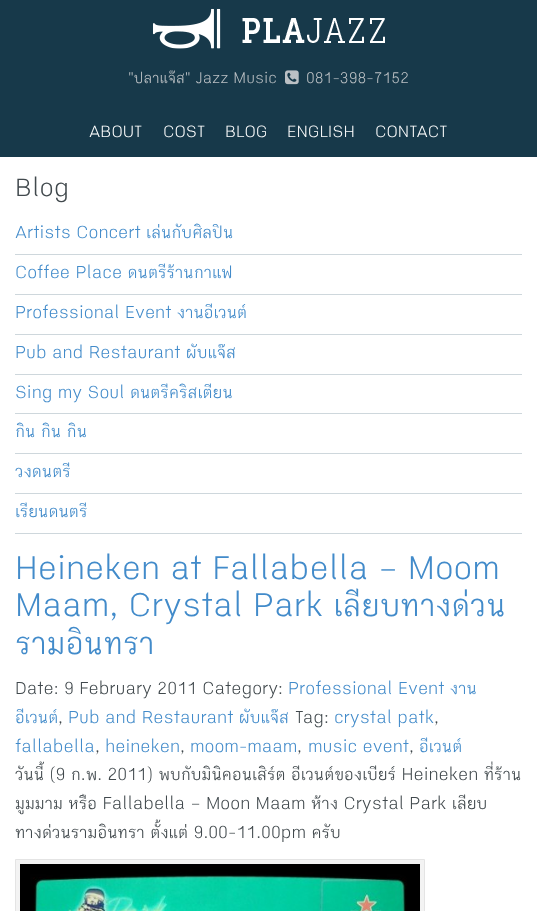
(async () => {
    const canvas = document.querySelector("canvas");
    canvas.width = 537;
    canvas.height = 911;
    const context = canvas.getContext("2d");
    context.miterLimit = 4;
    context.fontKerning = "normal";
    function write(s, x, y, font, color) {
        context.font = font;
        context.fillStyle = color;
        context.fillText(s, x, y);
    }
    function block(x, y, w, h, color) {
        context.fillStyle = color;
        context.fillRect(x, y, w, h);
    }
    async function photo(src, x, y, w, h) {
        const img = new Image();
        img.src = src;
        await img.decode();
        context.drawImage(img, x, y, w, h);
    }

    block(0, 0, 537, 911, "rgb(255, 255, 255)");
    block(0, 0, 537, 157, "rgb(23, 57, 74)");
    await photo("media/1.png", 153, 8, 232, 41);
    write("\"ปลาแจ๊ส\" Jazz Music", 128, 83, "300 16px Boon", "rgb(187, 192, 196)");
    await photo("media/2.png", 285, 70, 14, 15);
    write("081-398-7152", 306, 83, "300 16px Boon", "rgb(187, 192, 196)");
    write("ABOUT", 89, 137, "300 17px Boon", "rgb(255, 255, 255)");
    write("COST", 163, 137, "300 17px Boon", "rgb(255, 255, 255)");
    write("BLOG", 225, 137, "300 17px Boon", "rgb(255, 255, 255)");
    write("ENGLISH", 287, 137, "300 17px Boon", "rgb(255, 255, 255)");
    write("CONTACT", 375, 137, "300 17px Boon", "rgb(255, 255, 255)");
    write("Blog", 15, 196, "300 26px Boon", "rgb(65, 73, 77)");
    block(15, 254, 507, 1, "rgb(206, 215, 220)");
    write("Artists Concert เล่นกับศิลปิน", 15, 238, "300 18px Boon", "rgb(66, 139, 202)");
    block(15, 294, 507, 1, "rgb(206, 215, 220)");
    write("Coffee Place ดนตรีร้านกาแฟ", 15, 278, "300 18px Boon", "rgb(66, 139, 202)");
    block(15, 334, 507, 1, "rgb(206, 215, 220)");
    write("Professional Event งานอีเวนต์", 15, 318, "300 18px Boon", "rgb(66, 139, 202)");
    block(15, 374, 507, 1, "rgb(206, 215, 220)");
    write("Pub and Restaurant ผับแจ๊ส", 15, 358, "300 18px Boon", "rgb(66, 139, 202)");
    block(15, 413, 507, 1, "rgb(206, 215, 220)");
    write("Sing my Soul ดนตรีคริสเตียน", 15, 398, "300 18px Boon", "rgb(66, 139, 202)");
    block(15, 453, 507, 1, "rgb(206, 215, 220)");
    write("กิน กิน กิน", 15, 437, "300 18px Boon", "rgb(66, 139, 202)");
    block(15, 493, 507, 1, "rgb(206, 215, 220)");
    write("วงดนตรี", 15, 477, "300 18px Boon", "rgb(66, 139, 202)");
    block(15, 533, 507, 1, "rgb(206, 215, 220)");
    write("เรียนดนตรี", 15, 517, "300 18px Boon", "rgb(66, 139, 202)");
    write("Heineken at Fallabella – Moom", 15, 579, "300 34px Boon", "rgb(66, 139, 202)");
    write("Maam, Crystal Park เลียบทางด่วน", 15, 616, "300 34px Boon", "rgb(66, 139, 202)");
    write("รามอินทรา", 15, 654, "300 34px Boon", "rgb(66, 139, 202)");
    write("Date: 9 February 2011 Category:", 15, 694, "300 18px Boon", "rgb(65, 73, 77)");
    write("Professional Event งาน", 288, 694, "300 18px Boon", "rgb(66, 139, 202)");
    write("อีเวนต์", 15, 723, "300 18px Boon", "rgb(66, 139, 202)");
    write(",", 58, 723, "300 18px Boon", "rgb(65, 73, 77)");
    write("Pub and Restaurant ผับแจ๊ส", 68, 723, "300 18px Boon", "rgb(66, 139, 202)");
    write("Tag:", 295, 723, "300 18px Boon", "rgb(65, 73, 77)");
    write("crystal patk", 334, 723, "300 18px Boon", "rgb(66, 139, 202)");
    write(",", 434, 723, "300 18px Boon", "rgb(65, 73, 77)");
    write("fallabella", 15, 752, "300 18px Boon", "rgb(66, 139, 202)");
    write(",", 95, 752, "300 18px Boon", "rgb(65, 73, 77)");
    write("heineken", 105, 752, "300 18px Boon", "rgb(66, 139, 202)");
    write(",", 180, 752, "300 18px Boon", "rgb(65, 73, 77)");
    write("moom-maam", 190, 752, "300 18px Boon", "rgb(66, 139, 202)");
    write(",", 297, 752, "300 18px Boon", "rgb(65, 73, 77)");
    write("music event", 308, 752, "300 18px Boon", "rgb(66, 139, 202)");
    write(",", 409, 752, "300 18px Boon", "rgb(65, 73, 77)");
    write("อีเวนต์", 419, 752, "300 18px Boon", "rgb(66, 139, 202)");
    write("วันนี้ (9 ก.พ. 2011) พบกับมินิคอนเสิร์ต อีเวนต์ของเบียร์ Heineken ที่ร้าน", 15, 780, "300 18px Boon", "rgb(65, 73, 77)");
    write("มูมมาม หรือ Fallabella – Moon Maam ห้าง Crystal Park เลียบ", 15, 809, "300 18px Boon", "rgb(65, 73, 77)");
    write("ทางด่วนรามอินทรา ตั้งแต่ 9.00-11.00pm ครับ", 15, 838, "300 18px Boon", "rgb(65, 73, 77)");
    context.fillStyle = "rgb(243, 243, 243)";
    context.beginPath();
    context.rect(15.5, 859.5, 409, 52);
    context.fill();
    context.strokeStyle = "rgb(228, 228, 228)";
    context.stroke();
    await photo("media/3.png", 20, 864, 400, 47);
})();
